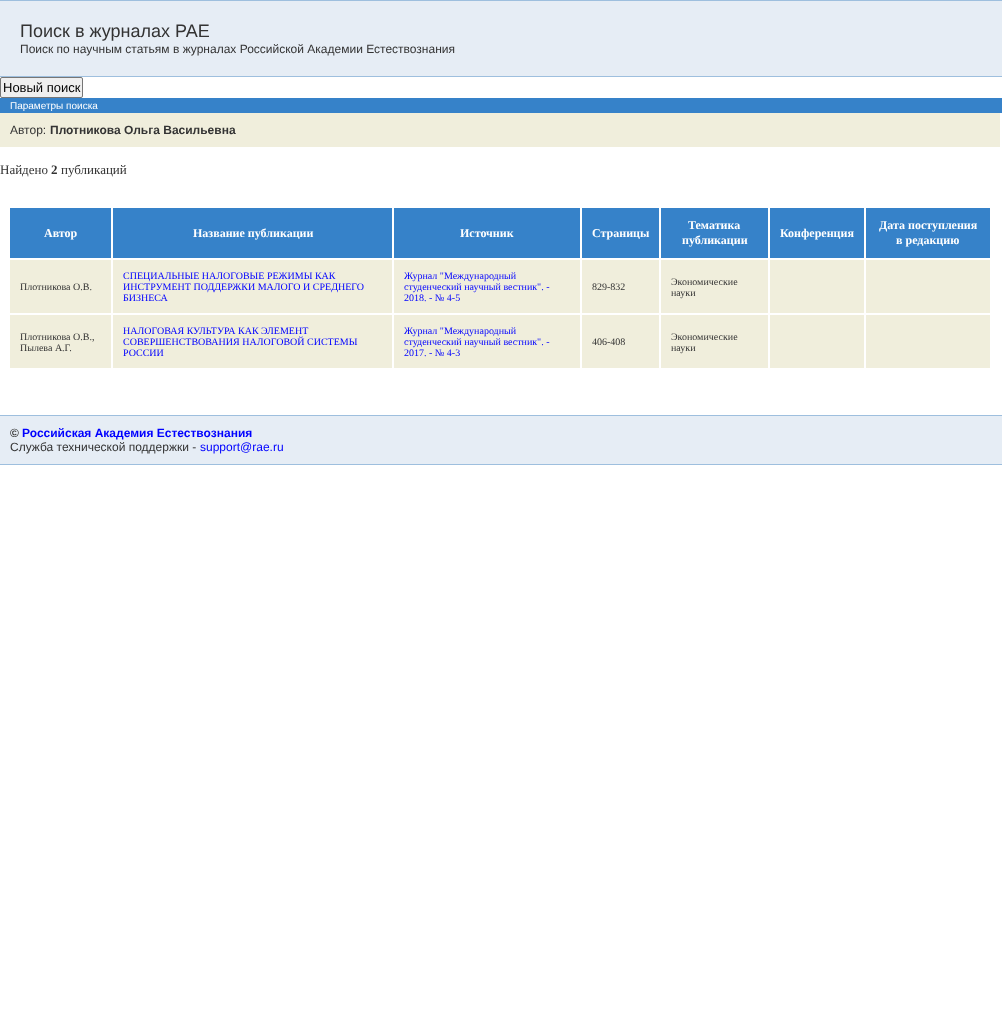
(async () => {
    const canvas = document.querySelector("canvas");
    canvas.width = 1002;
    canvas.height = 1028;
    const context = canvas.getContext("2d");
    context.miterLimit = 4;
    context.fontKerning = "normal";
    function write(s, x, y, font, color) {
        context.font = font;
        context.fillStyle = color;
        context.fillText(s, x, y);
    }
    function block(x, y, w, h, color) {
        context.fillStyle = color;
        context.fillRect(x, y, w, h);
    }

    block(0, 0, 1002, 1028, "rgb(255, 255, 255)");
    block(0, 1, 1002, 75, "rgb(230, 237, 245)");
    block(0, 0, 1002, 1, "rgb(158, 191, 222)");
    block(0, 76, 1002, 1, "rgb(158, 191, 222)");
    write("Поиск в журналах РАЕ", 20, 37, "18px Liberation Sans", "rgb(51, 51, 51)");
    write("Поиск по научным статьям в журналах Российской Академии Естествознания", 20, 53, "12px Liberation Sans", "rgb(51, 51, 51)");
    context.fillStyle = "rgb(239, 239, 239)";
    context.beginPath();
    context.roundRect(0.5, 77.5, 82, 20, 1.5);
    context.fill();
    context.strokeStyle = "rgb(118, 118, 118)";
    context.stroke();
    write("Новый поиск", 3, 92, "13px Liberation Sans", "rgb(0, 0, 0)");
    block(0, 98, 1002, 15, "rgb(54, 130, 201)");
    write("Параметры поиска", 10, 109, "10px Liberation Sans", "rgb(255, 255, 255)");
    block(0, 113, 1000, 34, "rgb(240, 238, 220)");
    write("Автор:", 10, 134, "12px Liberation Sans", "rgb(51, 51, 51)");
    write("Плотникова Ольга Васильевна", 50, 134, "bold 12px Liberation Sans", "rgb(51, 51, 51)");
    write("Найдено", 0, 174, "13px Liberation Serif", "rgb(51, 51, 51)");
    write("2", 51, 174, "bold 13px Liberation Serif", "rgb(51, 51, 51)");
    write("публикаций", 61, 174, "13px Liberation Serif", "rgb(51, 51, 51)");
    block(10, 208, 101, 50, "rgb(54, 130, 201)");
    write("Автор", 44, 237, "bold 12px Liberation Serif", "rgb(255, 255, 255)");
    block(113, 208, 279, 50, "rgb(54, 130, 201)");
    write("Название публикации", 193, 237, "bold 12px Liberation Serif", "rgb(255, 255, 255)");
    block(394, 208, 186, 50, "rgb(54, 130, 201)");
    write("Источник", 460, 237, "bold 12px Liberation Serif", "rgb(255, 255, 255)");
    block(582, 208, 77, 50, "rgb(54, 130, 201)");
    write("Страницы", 592, 237, "bold 12px Liberation Serif", "rgb(255, 255, 255)");
    block(661, 208, 107, 50, "rgb(54, 130, 201)");
    write("Тематика", 688, 229, "bold 12px Liberation Serif", "rgb(255, 255, 255)");
    write("публикации", 682, 244, "bold 12px Liberation Serif", "rgb(255, 255, 255)");
    block(770, 208, 94, 50, "rgb(54, 130, 201)");
    write("Конференция", 780, 237, "bold 12px Liberation Serif", "rgb(255, 255, 255)");
    block(866, 208, 124, 50, "rgb(54, 130, 201)");
    write("Дата поступления", 879, 229, "bold 12px Liberation Serif", "rgb(255, 255, 255)");
    write("в редакцию", 896, 244, "bold 12px Liberation Serif", "rgb(255, 255, 255)");
    block(10, 260, 101, 53, "rgb(240, 238, 220)");
    write("Плотникова О.В.", 20, 290, "10px Liberation Serif", "rgb(51, 51, 51)");
    block(113, 260, 279, 53, "rgb(240, 238, 220)");
    write("СПЕЦИАЛЬНЫЕ НАЛОГОВЫЕ РЕЖИМЫ КАК", 123, 279, "10px Liberation Serif", "rgb(0, 0, 255)");
    write("ИНСТРУМЕНТ ПОДДЕРЖКИ МАЛОГО И СРЕДНЕГО", 123, 290, "10px Liberation Serif", "rgb(0, 0, 255)");
    write("БИЗНЕСА", 123, 301, "10px Liberation Serif", "rgb(0, 0, 255)");
    block(394, 260, 186, 53, "rgb(240, 238, 220)");
    write("Журнал \"Международный", 404, 279, "10px Liberation Serif", "rgb(0, 0, 255)");
    write("студенческий научный вестник\". -", 404, 290, "10px Liberation Serif", "rgb(0, 0, 255)");
    write("2018. - № 4-5", 404, 301, "10px Liberation Serif", "rgb(0, 0, 255)");
    block(582, 260, 77, 53, "rgb(240, 238, 220)");
    write("829-832", 592, 290, "10px Liberation Serif", "rgb(51, 51, 51)");
    block(661, 260, 107, 53, "rgb(240, 238, 220)");
    write("Экономические", 671, 285, "10px Liberation Serif", "rgb(51, 51, 51)");
    write("науки", 671, 296, "10px Liberation Serif", "rgb(51, 51, 51)");
    block(770, 260, 94, 53, "rgb(240, 238, 220)");
    block(866, 260, 124, 53, "rgb(240, 238, 220)");
    block(10, 315, 101, 53, "rgb(240, 238, 220)");
    write("Плотникова О.В.,", 20, 340, "10px Liberation Serif", "rgb(51, 51, 51)");
    write("Пылева А.Г.", 20, 351, "10px Liberation Serif", "rgb(51, 51, 51)");
    block(113, 315, 279, 53, "rgb(240, 238, 220)");
    write("НАЛОГОВАЯ КУЛЬТУРА КАК ЭЛЕМЕНТ", 123, 334, "10px Liberation Serif", "rgb(0, 0, 255)");
    write("СОВЕРШЕНСТВОВАНИЯ НАЛОГОВОЙ СИСТЕМЫ", 123, 345, "10px Liberation Serif", "rgb(0, 0, 255)");
    write("РОССИИ", 123, 356, "10px Liberation Serif", "rgb(0, 0, 255)");
    block(394, 315, 186, 53, "rgb(240, 238, 220)");
    write("Журнал \"Международный", 404, 334, "10px Liberation Serif", "rgb(0, 0, 255)");
    write("студенческий научный вестник\". -", 404, 345, "10px Liberation Serif", "rgb(0, 0, 255)");
    write("2017. - № 4-3", 404, 356, "10px Liberation Serif", "rgb(0, 0, 255)");
    block(582, 315, 77, 53, "rgb(240, 238, 220)");
    write("406-408", 592, 345, "10px Liberation Serif", "rgb(51, 51, 51)");
    block(661, 315, 107, 53, "rgb(240, 238, 220)");
    write("Экономические", 671, 340, "10px Liberation Serif", "rgb(51, 51, 51)");
    write("науки", 671, 351, "10px Liberation Serif", "rgb(51, 51, 51)");
    block(770, 315, 94, 53, "rgb(240, 238, 220)");
    block(866, 315, 124, 53, "rgb(240, 238, 220)");
    block(0, 416, 1002, 48, "rgb(230, 237, 245)");
    block(0, 415, 1002, 1, "rgb(158, 191, 222)");
    block(0, 464, 1002, 1, "rgb(158, 191, 222)");
    write("©", 10, 437, "bold 12px Liberation Sans", "rgb(51, 51, 51)");
    write("Российская Академия Естествознания", 22, 437, "bold 12px Liberation Sans", "rgb(0, 0, 255)");
    write("Служба технической поддержки -", 10, 451, "12px Liberation Sans", "rgb(51, 51, 51)");
    write("support@rae.ru", 200, 451, "12px Liberation Sans", "rgb(0, 0, 255)");
})();
